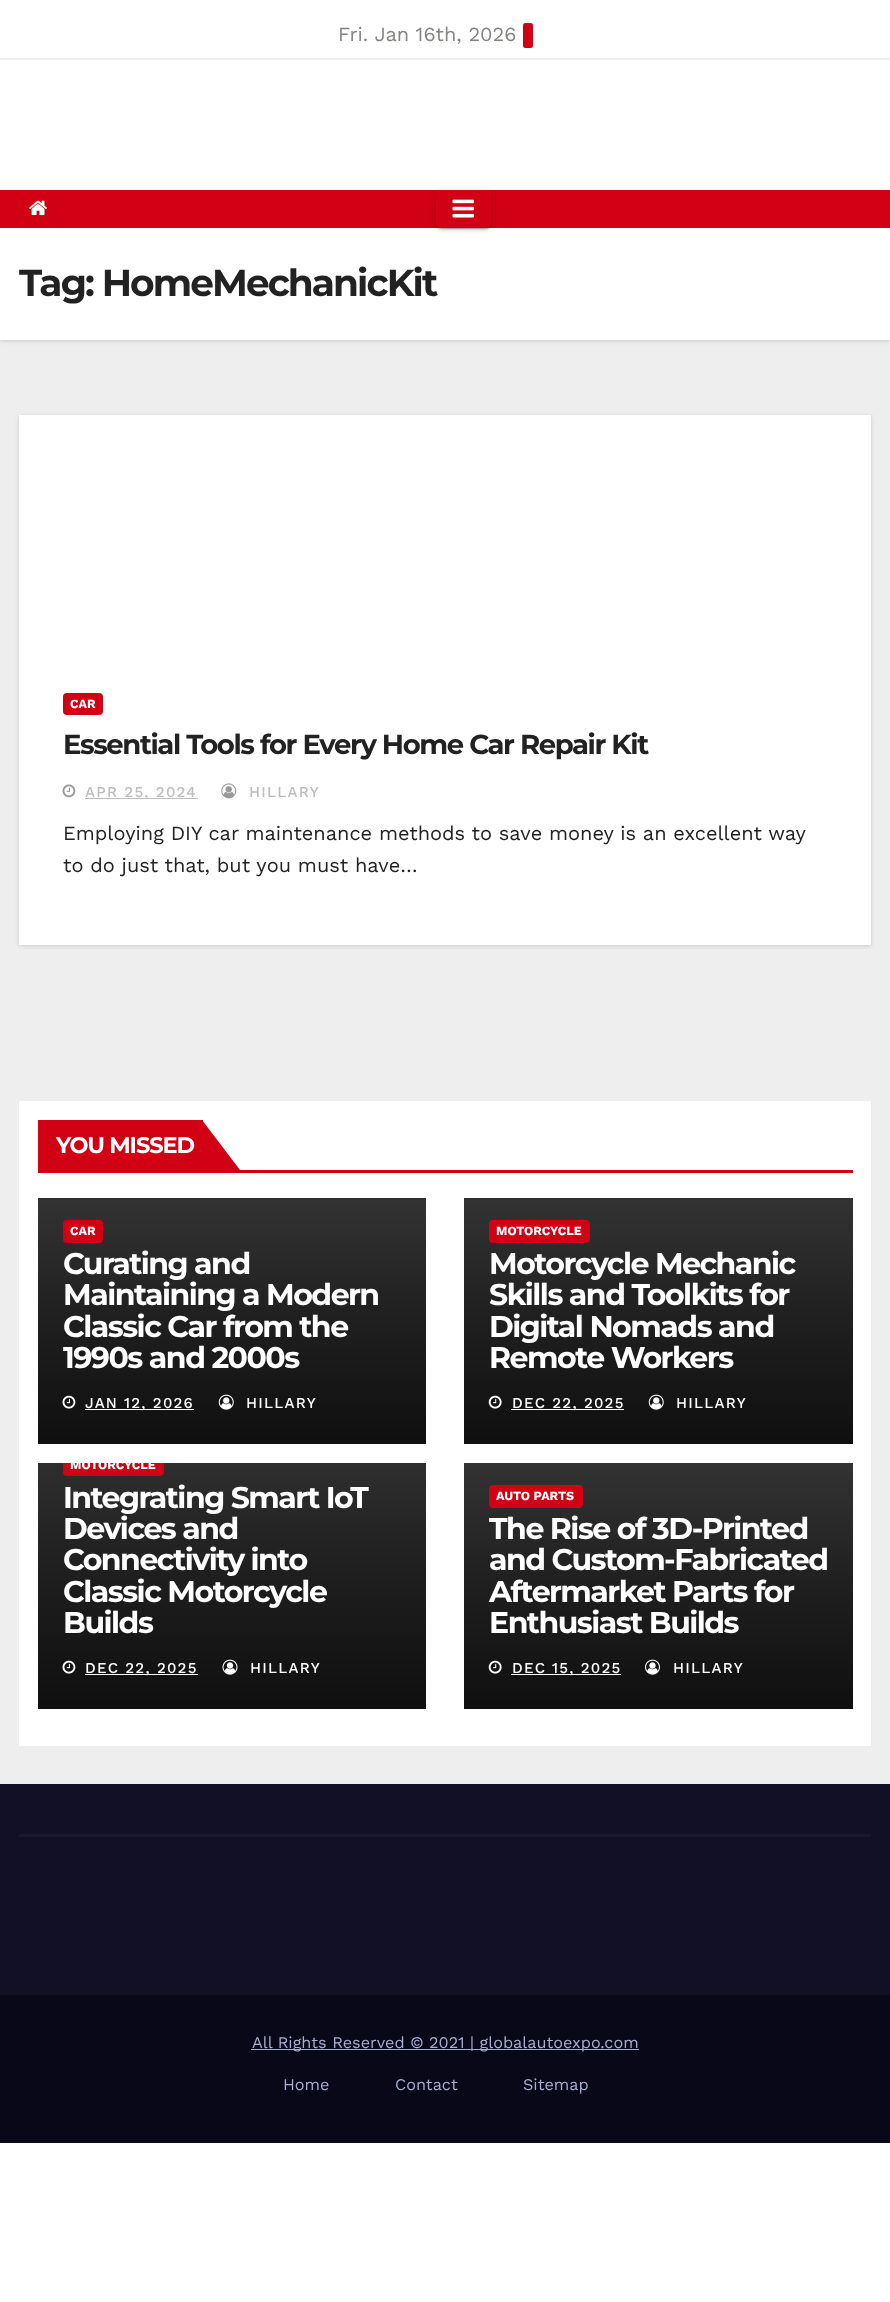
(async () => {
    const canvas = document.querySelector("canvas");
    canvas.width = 890;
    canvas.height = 2302;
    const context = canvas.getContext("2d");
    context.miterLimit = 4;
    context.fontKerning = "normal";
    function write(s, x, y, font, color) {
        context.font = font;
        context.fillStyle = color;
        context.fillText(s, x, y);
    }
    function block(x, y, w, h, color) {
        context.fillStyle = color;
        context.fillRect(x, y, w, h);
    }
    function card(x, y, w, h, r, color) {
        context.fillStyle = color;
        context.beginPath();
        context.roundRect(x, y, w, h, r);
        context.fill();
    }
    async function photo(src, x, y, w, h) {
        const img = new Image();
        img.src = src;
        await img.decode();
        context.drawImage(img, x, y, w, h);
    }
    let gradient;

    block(0, 0, 890, 2302, "rgb(255, 255, 255)");
    block(0, 58, 890, 1726, "rgb(238, 238, 238)");
    write("Fri. Jan 16th, 2026", 338, 41, "20px Work Sans", "rgb(132, 133, 130)");
    card(523, 23, 10, 25, 2.5, "rgb(209, 0, 20)");
    block(0, 60, 890, 130, "rgb(255, 255, 255)");
    context.fillStyle = "rgba(0, 0, 0, 0.15)";
    context.filter = "blur(2px)";
    context.beginPath();
    context.rect(0, 229, 890, 112);
    context.fill();
    context.filter = "none";
    block(0, 190, 890, 38, "rgb(209, 0, 20)");
    await photo("media/1.png", 29, 200, 18, 15);
    block(0, 228, 890, 112, "rgb(255, 255, 255)");
    context.save();
    context.beginPath();
    context.moveTo(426, 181);
    context.lineTo(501, 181);
    context.lineTo(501, 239);
    context.lineTo(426, 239);
    context.closePath();
    context.moveTo(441, 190);
    context.lineTo(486, 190);
    context.bezierCurveTo(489, 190, 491, 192, 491, 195);
    context.lineTo(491, 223);
    context.bezierCurveTo(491, 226, 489, 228, 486, 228);
    context.lineTo(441, 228);
    context.bezierCurveTo(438, 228, 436, 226, 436, 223);
    context.lineTo(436, 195);
    context.bezierCurveTo(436, 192, 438, 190, 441, 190);
    context.closePath();
    context.clip("evenodd");
    context.fillStyle = "rgba(0, 0, 0, 0.12)";
    context.filter = "blur(3px)";
    context.beginPath();
    context.roundRect(436, 191, 55, 38, 5);
    context.fill();
    context.filter = "none";
    context.restore();
    context.save();
    context.beginPath();
    context.moveTo(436, 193);
    context.lineTo(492, 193);
    context.lineTo(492, 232);
    context.lineTo(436, 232);
    context.closePath();
    context.moveTo(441, 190);
    context.lineTo(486, 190);
    context.bezierCurveTo(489, 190, 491, 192, 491, 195);
    context.lineTo(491, 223);
    context.bezierCurveTo(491, 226, 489, 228, 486, 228);
    context.lineTo(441, 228);
    context.bezierCurveTo(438, 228, 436, 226, 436, 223);
    context.lineTo(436, 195);
    context.bezierCurveTo(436, 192, 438, 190, 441, 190);
    context.closePath();
    context.clip("evenodd");
    context.fillStyle = "rgba(0, 0, 0, 0.2)";
    context.filter = "blur(0.5px)";
    context.beginPath();
    context.roundRect(439, 196, 50, 33, 2.5);
    context.fill();
    context.filter = "none";
    context.restore();
    context.save();
    context.beginPath();
    context.moveTo(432, 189);
    context.lineTo(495, 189);
    context.lineTo(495, 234);
    context.lineTo(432, 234);
    context.closePath();
    context.moveTo(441, 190);
    context.lineTo(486, 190);
    context.bezierCurveTo(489, 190, 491, 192, 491, 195);
    context.lineTo(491, 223);
    context.bezierCurveTo(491, 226, 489, 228, 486, 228);
    context.lineTo(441, 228);
    context.bezierCurveTo(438, 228, 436, 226, 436, 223);
    context.lineTo(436, 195);
    context.bezierCurveTo(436, 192, 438, 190, 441, 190);
    context.closePath();
    context.clip("evenodd");
    context.fillStyle = "rgba(0, 0, 0, 0.14)";
    context.filter = "blur(1px)";
    context.beginPath();
    context.roundRect(436, 193, 55, 37, 5);
    context.fill();
    context.filter = "none";
    context.restore();
    await photo("media/2.png", 452, 199, 22, 19);
    context.letterSpacing = "-1.9px";
    write("Tag: HomeMechanicKit", 19, 296, "bold 37.5px Montserrat", "rgb(34, 34, 34)");
    context.fillStyle = "rgba(0, 0, 0, 0.15)";
    context.filter = "blur(2px)";
    context.beginPath();
    context.rect(19, 416, 852, 530);
    context.fill();
    context.filter = "none";
    block(19, 415, 852, 530, "rgb(255, 255, 255)");
    card(63, 693, 40, 22, 4, "rgb(209, 0, 20)");
    context.letterSpacing = "0px";
    write("CAR", 70, 708, "bold 12.5px Work Sans", "rgb(255, 255, 255)");
    context.letterSpacing = "-1.4px";
    write("Essential Tools for Every Home Car Repair Kit", 63, 754, "bold 27.5px Montserrat", "rgb(34, 34, 34)");
    await photo("media/3.png", 62, 784, 14, 14);
    block(85, 798, 113, 1, "rgb(189, 189, 189)");
    context.letterSpacing = "1.25px";
    write("APR 25, 2024", 85, 797, "500 15px Work Sans", "rgb(189, 189, 189)");
    await photo("media/4.png", 221, 783, 16, 16);
    write("HILLARY", 249, 797, "500 15px Work Sans", "rgb(189, 189, 189)");
    context.letterSpacing = "0px";
    write("Employing DIY car maintenance methods to save money is an excellent way", 63, 840, "20px Work Sans", "rgb(34, 34, 34)");
    write("to do just that, but you must have…", 63, 872, "20px Work Sans", "rgb(34, 34, 34)");
    block(19, 1101, 852, 645, "rgb(255, 255, 255)");
    block(38, 1170, 815, 3, "rgb(209, 0, 20)");
    block(38, 1120, 165, 50, "rgb(209, 0, 20)");
    context.letterSpacing = "-1.1px";
    write("YOU MISSED", 56, 1153, "bold 22.5px Montserrat", "rgb(255, 255, 255)");
    context.fillStyle = "rgb(209, 0, 20)";
    context.beginPath();
    context.moveTo(202, 1170);
    context.lineTo(202, 1120);
    context.lineTo(240, 1170);
    context.closePath();
    context.fill();
    gradient = context.createLinearGradient(232, 1198, 232, 1444);
    gradient.addColorStop(0, "rgb(51, 51, 51)");
    gradient.addColorStop(0.5, "rgb(31, 31, 31)");
    gradient.addColorStop(1, "rgb(15, 15, 15)");
    context.fillStyle = gradient;
    context.fillRect(38, 1198, 388, 246);
    card(63, 1220, 40, 23, 4, "rgb(209, 0, 20)");
    context.letterSpacing = "0px";
    write("CAR", 70, 1235, "bold 12.5px Work Sans", "rgb(255, 255, 255)");
    context.letterSpacing = "-1.5px";
    write("Curating and", 63, 1274, "bold 30px Montserrat", "rgb(255, 255, 255)");
    write("Maintaining a Modern", 63, 1305, "bold 30px Montserrat", "rgb(255, 255, 255)");
    write("Classic Car from the", 63, 1337, "bold 30px Montserrat", "rgb(255, 255, 255)");
    context.save();
    context.beginPath();
    context.rect(63, 1248, 338, 125);
    context.clip();
    write("1990s and 2000s", 63, 1368, "bold 30px Montserrat", "rgb(255, 255, 255)");
    context.restore();
    await photo("media/5.png", 62, 1395, 14, 14);
    block(85, 1409, 109, 1, "rgb(255, 255, 255)");
    context.letterSpacing = "1.25px";
    write("JAN 12, 2026", 85, 1408, "500 15px Work Sans", "rgb(255, 255, 255)");
    await photo("media/6.png", 218, 1394, 16, 16);
    write("HILLARY", 246, 1408, "500 15px Work Sans", "rgb(255, 255, 255)");
    gradient = context.createLinearGradient(658, 1198, 658, 1444);
    gradient.addColorStop(0, "rgb(51, 51, 51)");
    gradient.addColorStop(0.5, "rgb(31, 31, 31)");
    gradient.addColorStop(1, "rgb(15, 15, 15)");
    context.fillStyle = gradient;
    context.fillRect(464, 1198, 389, 246);
    card(489, 1220, 101, 23, 4, "rgb(209, 0, 20)");
    context.letterSpacing = "0px";
    write("MOTORCYCLE", 496, 1235, "bold 12.5px Work Sans", "rgb(255, 255, 255)");
    context.letterSpacing = "-1.5px";
    write("Motorcycle Mechanic", 489, 1274, "bold 30px Montserrat", "rgb(255, 255, 255)");
    write("Skills and Toolkits for", 489, 1305, "bold 30px Montserrat", "rgb(255, 255, 255)");
    write("Digital Nomads and", 489, 1337, "bold 30px Montserrat", "rgb(255, 255, 255)");
    write("Remote Workers", 489, 1368, "bold 30px Montserrat", "rgb(255, 255, 255)");
    await photo("media/7.png", 488, 1395, 14, 14);
    block(511, 1409, 113, 1, "rgb(255, 255, 255)");
    context.letterSpacing = "1.25px";
    write("DEC 22, 2025", 512, 1408, "500 15px Work Sans", "rgb(255, 255, 255)");
    await photo("media/6.png", 648, 1394, 16, 16);
    write("HILLARY", 676, 1408, "500 15px Work Sans", "rgb(255, 255, 255)");
    gradient = context.createLinearGradient(232, 1431, 232, 1709);
    gradient.addColorStop(0, "rgb(51, 51, 51)");
    gradient.addColorStop(0.5, "rgb(31, 31, 31)");
    gradient.addColorStop(1, "rgb(15, 15, 15)");
    context.fillStyle = gradient;
    context.fillRect(38, 1463, 388, 246);
    context.fillStyle = "rgb(209, 0, 20)";
    context.beginPath();
    context.roundRect(63, 1463, 101, 13, [0, 0, 4, 4]);
    context.fill();
    context.save();
    context.beginPath();
    context.rect(38, 1463, 388, 246);
    context.clip();
    context.letterSpacing = "0px";
    write("MOTORCYCLE", 70, 1469, "bold 12.5px Work Sans", "rgb(255, 255, 255)");
    context.restore();
    context.letterSpacing = "-1.5px";
    write("Integrating Smart IoT", 63, 1508, "bold 30px Montserrat", "rgb(255, 255, 255)");
    write("Devices and", 63, 1539, "bold 30px Montserrat", "rgb(255, 255, 255)");
    write("Connectivity into", 63, 1570, "bold 30px Montserrat", "rgb(255, 255, 255)");
    write("Classic Motorcycle", 63, 1602, "bold 30px Montserrat", "rgb(255, 255, 255)");
    write("Builds", 63, 1633, "bold 30px Montserrat", "rgb(255, 255, 255)");
    await photo("media/8.png", 62, 1660, 14, 14);
    block(85, 1674, 113, 1, "rgb(255, 255, 255)");
    context.letterSpacing = "1.25px";
    write("DEC 22, 2025", 85, 1673, "500 15px Work Sans", "rgb(255, 255, 255)");
    await photo("media/9.png", 222, 1659, 16, 16);
    write("HILLARY", 250, 1673, "500 15px Work Sans", "rgb(255, 255, 255)");
    gradient = context.createLinearGradient(658, 1463, 658, 1709);
    gradient.addColorStop(0, "rgb(51, 51, 51)");
    gradient.addColorStop(0.5, "rgb(31, 31, 31)");
    gradient.addColorStop(1, "rgb(15, 15, 15)");
    context.fillStyle = gradient;
    context.fillRect(464, 1463, 389, 246);
    card(489, 1485, 94, 23, 4, "rgb(209, 0, 20)");
    context.letterSpacing = "0px";
    write("AUTO PARTS", 496, 1500, "bold 12.5px Work Sans", "rgb(255, 255, 255)");
    context.save();
    context.beginPath();
    context.rect(489, 1513, 339, 125);
    context.clip();
    context.letterSpacing = "-1.5px";
    write("The Rise of 3D-Printed", 489, 1539, "bold 30px Montserrat", "rgb(255, 255, 255)");
    context.restore();
    context.letterSpacing = "-1.5px";
    write("and Custom-Fabricated", 489, 1570, "bold 30px Montserrat", "rgb(255, 255, 255)");
    write("Aftermarket Parts for", 489, 1602, "bold 30px Montserrat", "rgb(255, 255, 255)");
    write("Enthusiast Builds", 489, 1633, "bold 30px Montserrat", "rgb(255, 255, 255)");
    await photo("media/7.png", 488, 1660, 14, 14);
    block(511, 1674, 110, 1, "rgb(255, 255, 255)");
    context.letterSpacing = "1.25px";
    write("DEC 15, 2025", 512, 1673, "500 15px Work Sans", "rgb(255, 255, 255)");
    await photo("media/10.png", 645, 1659, 15, 16);
    write("HILLARY", 673, 1673, "500 15px Work Sans", "rgb(255, 255, 255)");
    block(0, 1784, 890, 211, "rgb(18, 16, 38)");
    block(19, 1834, 852, 3, "rgb(26, 24, 46)");
    block(0, 1995, 890, 148, "rgb(9, 8, 24)");
    block(251, 2049, 388, 1, "rgb(170, 174, 209)");
    context.letterSpacing = "0px";
    write("All Rights Reserved © 2021 | globalautoexpo.com", 252, 2048, "16.25px Work Sans", "rgb(170, 174, 209)");
    write("Home", 283, 2090, "16.25px Work Sans", "rgb(170, 174, 209)");
    write("Contact", 395, 2090, "16.25px Work Sans", "rgb(170, 174, 209)");
    write("Sitemap", 523, 2090, "16.25px Work Sans", "rgb(170, 174, 209)");
})();
